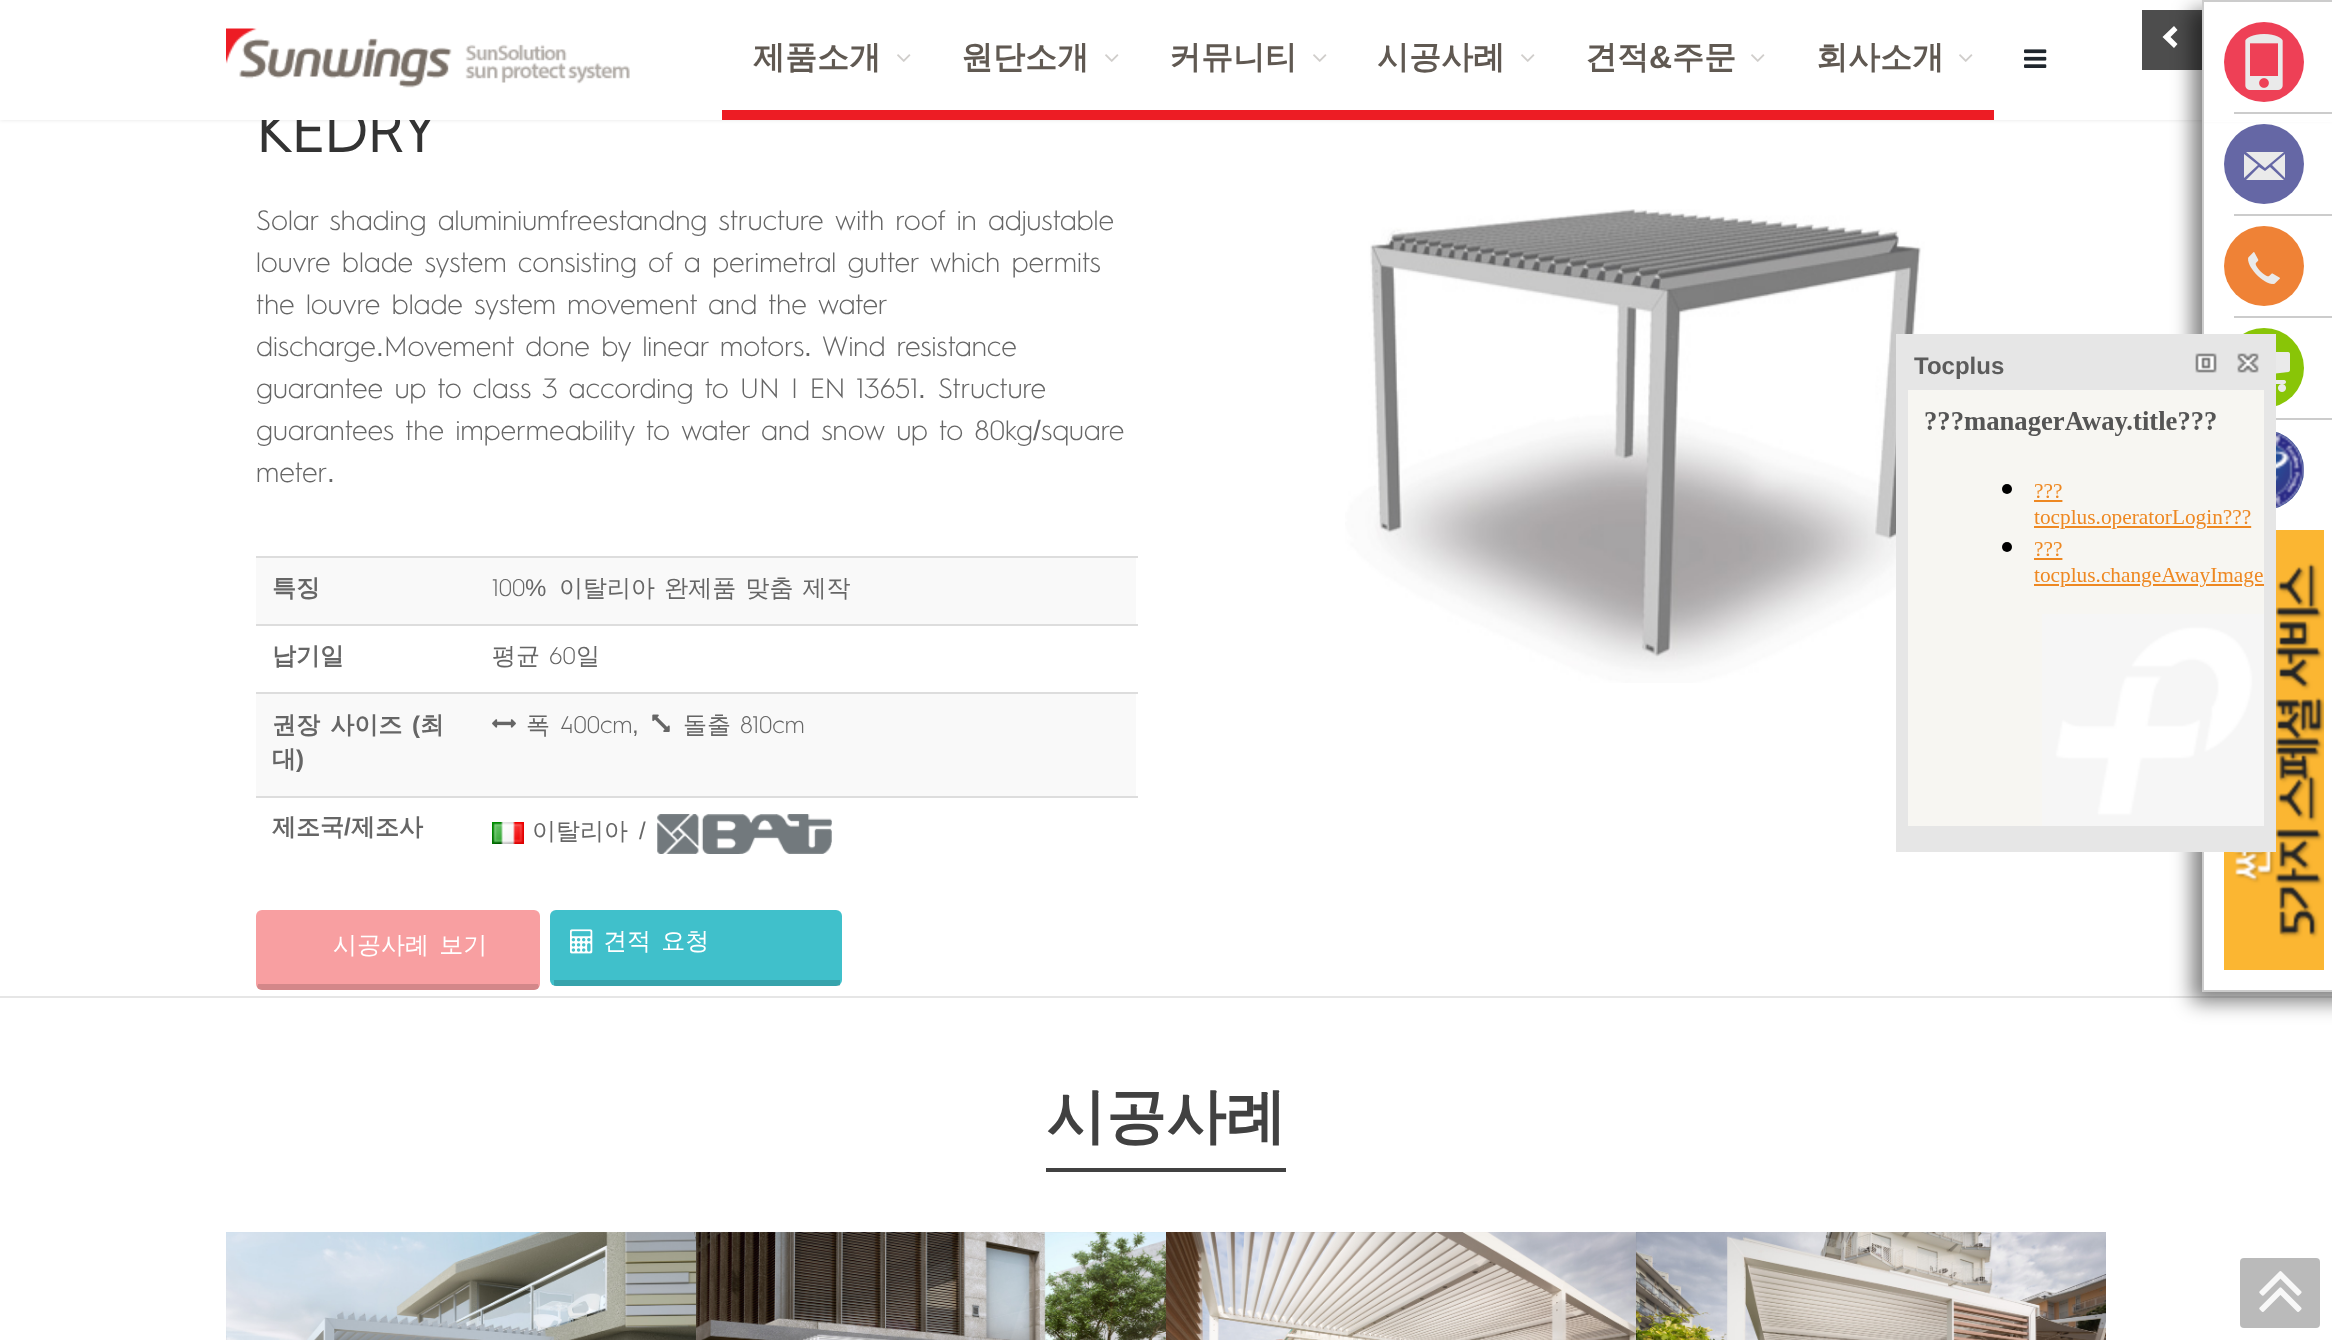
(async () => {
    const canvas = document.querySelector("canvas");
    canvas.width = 2332;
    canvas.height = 1340;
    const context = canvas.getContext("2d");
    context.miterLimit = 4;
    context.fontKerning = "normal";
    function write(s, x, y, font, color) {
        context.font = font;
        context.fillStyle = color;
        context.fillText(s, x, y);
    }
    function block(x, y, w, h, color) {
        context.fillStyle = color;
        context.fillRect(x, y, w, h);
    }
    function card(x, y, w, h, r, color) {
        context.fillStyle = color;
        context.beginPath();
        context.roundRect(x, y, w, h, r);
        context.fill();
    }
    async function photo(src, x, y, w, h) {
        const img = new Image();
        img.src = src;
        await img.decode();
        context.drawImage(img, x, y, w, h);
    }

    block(0, 0, 2332, 1340, "rgb(255, 255, 255)");
    context.fillStyle = "rgba(0, 0, 0, 0.1)";
    context.filter = "blur(2px)";
    context.beginPath();
    context.rect(0, 0, 2332, 120);
    context.fill();
    context.filter = "none";
    write("KEDRY", 256, 152, "bold 60px 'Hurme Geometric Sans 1'", "rgb(51, 51, 51)");
    block(0, 0, 2332, 120, "rgb(255, 255, 255)");
    await photo("media/1.png", 226, 28, 404, 60);
    block(722, 110, 1272, 10, "rgb(237, 28, 36)");
    write("제품소개", 753, 68, "bold 32px WenQuanYi Zen Hei", "rgb(96, 89, 82)");
    await photo("media/2.png", 897, 54, 14, 8);
    write("원단소개", 961, 68, "bold 32px WenQuanYi Zen Hei", "rgb(96, 89, 82)");
    await photo("media/2.png", 1105, 54, 14, 8);
    write("커뮤니티", 1169, 68, "bold 32px WenQuanYi Zen Hei", "rgb(96, 89, 82)");
    await photo("media/2.png", 1313, 54, 14, 8);
    write("시공사례", 1377, 68, "bold 32px WenQuanYi Zen Hei", "rgb(96, 89, 82)");
    await photo("media/2.png", 1521, 54, 14, 8);
    write("견적", 1585, 68, "bold 32px WenQuanYi Zen Hei", "rgb(96, 89, 82)");
    write("&", 1649, 68, "bold 32px Liberation Sans", "rgb(96, 89, 82)");
    write("주문", 1672, 68, "bold 32px WenQuanYi Zen Hei", "rgb(96, 89, 82)");
    await photo("media/2.png", 1751, 54, 14, 8);
    write("회사소개", 1816, 68, "bold 32px WenQuanYi Zen Hei", "rgb(96, 89, 82)");
    await photo("media/2.png", 1959, 54, 14, 8);
    await photo("media/3.png", 2024, 49, 23, 19);
    block(0, 996, 2332, 2, "rgb(230, 230, 230)");
    write("Solar shading aluminiumfreestandng structure with roof in adjustable", 256, 230, "300 28px 'Hurme Geometric Sans 1'", "rgb(102, 102, 102)");
    write("louvre blade system consisting of a perimetral gutter which permits", 256, 272, "300 28px 'Hurme Geometric Sans 1'", "rgb(102, 102, 102)");
    context.wordSpacing = "-0.25px";
    write("the louvre blade system movement and the water", 256, 314, "300 28px 'Hurme Geometric Sans 1'", "rgb(102, 102, 102)");
    context.wordSpacing = "0px";
    write("discharge", 256, 356, "300 28px 'Hurme Geometric Sans 1'", "rgb(102, 102, 102)");
    write(".", 376, 356, "28px Liberation Sans", "rgb(102, 102, 102)");
    write("Movement done by linear motors", 384, 356, "300 28px 'Hurme Geometric Sans 1'", "rgb(102, 102, 102)");
    write(".", 804, 356, "28px Liberation Sans", "rgb(102, 102, 102)");
    write("Wind resistance", 822, 356, "300 28px 'Hurme Geometric Sans 1'", "rgb(102, 102, 102)");
    write("guarantee up to class 3 according to UN I EN 13651", 256, 398, "300 28px 'Hurme Geometric Sans 1'", "rgb(102, 102, 102)");
    write(".", 918, 398, "28px Liberation Sans", "rgb(102, 102, 102)");
    write("Structure", 938, 398, "300 28px 'Hurme Geometric Sans 1'", "rgb(102, 102, 102)");
    write("guarantees the impermeability to water and snow up to 80kg", 256, 440, "300 28px 'Hurme Geometric Sans 1'", "rgb(102, 102, 102)");
    write("/", 1033, 440, "28px Liberation Sans", "rgb(102, 102, 102)");
    write("square", 1041, 440, "300 28px 'Hurme Geometric Sans 1'", "rgb(102, 102, 102)");
    write("meter", 256, 482, "300 28px 'Hurme Geometric Sans 1'", "rgb(102, 102, 102)");
    write(".", 327, 482, "28px Liberation Sans", "rgb(102, 102, 102)");
    block(256, 558, 880, 66, "rgb(249, 249, 249)");
    write("특징", 272, 596, "bold 24px WenQuanYi Zen Hei", "rgb(102, 102, 102)");
    block(256, 556, 882, 2, "rgb(221, 221, 221)");
    write("100", 492, 596, "300 24px 'Hurme Geometric Sans 1'", "rgb(102, 102, 102)");
    write("%", 525, 596, "24px Liberation Sans", "rgb(102, 102, 102)");
    context.wordSpacing = "2px";
    write("이탈리아 완제품 맞춤 제작", 559, 596, "500 24px WenQuanYi Zen Hei", "rgb(102, 102, 102)");
    context.wordSpacing = "0px";
    write("납기일", 272, 664, "bold 24px WenQuanYi Zen Hei", "rgb(102, 102, 102)");
    block(256, 624, 882, 2, "rgb(221, 221, 221)");
    write("평균", 492, 664, "500 24px WenQuanYi Zen Hei", "rgb(102, 102, 102)");
    write("60", 549, 664, "300 24px 'Hurme Geometric Sans 1'", "rgb(102, 102, 102)");
    write("일", 576, 664, "500 24px WenQuanYi Zen Hei", "rgb(102, 102, 102)");
    block(256, 694, 880, 102, "rgb(249, 249, 249)");
    context.wordSpacing = "3px";
    write("권장 사이즈", 272, 733, "bold 24px WenQuanYi Zen Hei", "rgb(102, 102, 102)");
    context.wordSpacing = "0px";
    write("(", 412, 733, "bold 24px Liberation Sans", "rgb(102, 102, 102)");
    write("최", 420, 733, "bold 24px WenQuanYi Zen Hei", "rgb(102, 102, 102)");
    write("대", 272, 767, "bold 24px WenQuanYi Zen Hei", "rgb(102, 102, 102)");
    write(")", 296, 767, "bold 24px Liberation Sans", "rgb(102, 102, 102)");
    block(256, 692, 882, 2, "rgb(221, 221, 221)");
    await photo("media/4.png", 492, 719, 24, 9);
    write("폭", 526, 733, "500 24px WenQuanYi Zen Hei", "rgb(102, 102, 102)");
    write("400cm", 560, 733, "300 24px 'Hurme Geometric Sans 1'", "rgb(102, 102, 102)");
    await photo("media/5.png", 652, 714, 18, 18);
    write("돌출", 683, 733, "500 24px WenQuanYi Zen Hei", "rgb(102, 102, 102)");
    write("810cm", 740, 733, "300 24px 'Hurme Geometric Sans 1'", "rgb(102, 102, 102)");
    write(",", 632, 733, "24px Liberation Sans", "rgb(102, 102, 102)");
    write("제조국", 272, 835, "bold 24px WenQuanYi Zen Hei", "rgb(102, 102, 102)");
    write("/", 344, 835, "bold 24px Liberation Sans", "rgb(102, 102, 102)");
    write("제조사", 351, 835, "bold 24px WenQuanYi Zen Hei", "rgb(102, 102, 102)");
    block(256, 796, 882, 2, "rgb(221, 221, 221)");
    await photo("media/6.png", 492, 822, 32, 22);
    write("이탈리아", 532, 839, "500 24px WenQuanYi Zen Hei", "rgb(102, 102, 102)");
    write("/", 639, 839, "24px Liberation Sans", "rgb(102, 102, 102)");
    await photo("media/7.png", 657, 814, 175, 40);
    card(256, 910, 284, 80, 6, "rgb(248, 159, 161)");
    context.fillStyle = "rgba(0, 0, 0, 0.15)";
    context.beginPath();
    context.moveTo(262, 990);
    context.lineTo(534, 990);
    context.bezierCurveTo(536, 990, 538, 989, 539, 987);
    context.lineTo(538, 984);
    context.lineTo(258, 984);
    context.lineTo(257, 987);
    context.bezierCurveTo(258, 989, 260, 990, 262, 990);
    context.closePath();
    context.fill();
    context.wordSpacing = "3px";
    write("시공사례 보기", 333, 953, "500 24px WenQuanYi Zen Hei", "rgb(255, 255, 255)");
    card(550, 910, 292, 76, 6, "rgb(64, 192, 203)");
    block(554, 980, 286, 6, "rgba(0, 0, 0, 0.15)");
    await photo("media/8.png", 570, 929, 23, 25);
    write("견적 요청", 603, 949, "500 24px WenQuanYi Zen Hei", "rgb(255, 255, 255)");
    await photo("media/9.png", 1345, 209, 584, 474);
    block(1046, 1168, 240, 4, "rgb(65, 65, 65)");
    context.wordSpacing = "0px";
    write("시공사례", 1046, 1137, "bold 60px WenQuanYi Zen Hei", "rgb(65, 65, 65)");
    await photo("media/10.png", 226, 1232, 470, 108);
    await photo("media/11.png", 696, 1232, 470, 108);
    await photo("media/12.png", 1166, 1232, 470, 108);
    await photo("media/13.png", 1636, 1232, 470, 108);
    block(2142, 10, 60, 60, "rgb(77, 77, 77)");
    context.save();
    context.beginPath();
    context.moveTo(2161, 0);
    context.lineTo(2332, 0);
    context.lineTo(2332, 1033);
    context.lineTo(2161, 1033);
    context.closePath();
    context.moveTo(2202, 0);
    context.lineTo(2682, 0);
    context.lineTo(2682, 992);
    context.lineTo(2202, 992);
    context.closePath();
    context.clip("evenodd");
    context.fillStyle = "rgba(0, 0, 0, 0.5)";
    context.filter = "blur(10px)";
    context.beginPath();
    context.rect(2192, 10, 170, 992);
    context.fill();
    context.filter = "none";
    context.restore();
    block(2202, 0, 130, 2, "rgb(204, 204, 204)");
    block(2202, 990, 130, 2, "rgb(204, 204, 204)");
    block(2202, 0, 2, 992, "rgb(204, 204, 204)");
    context.fillStyle = "rgb(137, 197, 7)";
    context.beginPath();
    context.arc(2264, 368, 40, 0, Math.PI * 2);
    context.fill();
    context.fillStyle = "rgb(59, 89, 152)";
    context.beginPath();
    context.arc(2264, 470, 40, 0, Math.PI * 2);
    context.fill();
    await photo("media/21.png", 2224, 530, 100, 440);
    context.strokeStyle = "rgb(230, 230, 230)";
    context.lineWidth = 4;
    context.strokeRect(1898, 336, 376, 514);
    block(1900, 338, 372, 510, "rgb(230, 230, 230)");
    write("Tocplus", 1914, 374, "bold 24px Liberation Sans", "rgb(92, 92, 92)");
    await photo("media/14.png", 2195, 353, 22, 20);
    await photo("media/15.png", 2237, 353, 22, 20);
    await photo("media/16.png", 1908, 390, 356, 436);
    block(2204, 120, 128, 2, "rgba(255, 255, 255, 0.9)");
    context.fillStyle = "rgb(238, 64, 86)";
    context.beginPath();
    context.arc(2264, 62, 40, 0, Math.PI * 2);
    context.fill();
    await photo("media/17.png", 2245, 34, 38, 56);
    block(2234, 112, 98, 2, "rgb(204, 204, 204)");
    context.fillStyle = "rgb(101, 103, 165)";
    context.beginPath();
    context.arc(2264, 164, 40, 0, Math.PI * 2);
    context.fill();
    context.fillStyle = "rgb(234, 234, 234)";
    context.beginPath();
    context.moveTo(2244, 178);
    context.lineTo(2244, 154);
    context.lineTo(2258, 165);
    context.closePath();
    context.moveTo(2246, 152);
    context.lineTo(2284, 152);
    context.lineTo(2265, 168);
    context.closePath();
    context.moveTo(2246, 180);
    context.lineTo(2259, 167);
    context.lineTo(2265, 171);
    context.lineTo(2270, 167);
    context.lineTo(2284, 180);
    context.closePath();
    context.moveTo(2272, 165);
    context.lineTo(2285, 154);
    context.lineTo(2285, 178);
    context.closePath();
    context.fill();
    block(2234, 214, 98, 2, "rgb(204, 204, 204)");
    context.fillStyle = "rgb(239, 130, 54)";
    context.beginPath();
    context.arc(2264, 266, 40, 0, Math.PI * 2);
    context.fill();
    await photo("media/18.png", 2248, 252, 32, 32);
    block(2234, 316, 98, 2, "rgb(204, 204, 204)");
    await photo("media/19.png", 2276, 352, 14, 40);
    block(2276, 418, 56, 2, "rgb(204, 204, 204)");
    await photo("media/20.png", 2276, 432, 28, 76);
    context.fillStyle = "rgb(255, 255, 255)";
    context.beginPath();
    context.moveTo(2177.5, 30);
    context.lineTo(2170.5, 37);
    context.lineTo(2177.5, 44);
    context.lineTo(2174, 48);
    context.lineTo(2162.5, 37);
    context.lineTo(2174, 26);
    context.closePath();
    context.fill();
    card(2240, 1258, 80, 70, 4, "rgb(186, 186, 186)");
    await photo("media/22.png", 2259, 1271, 43, 41);
})();
